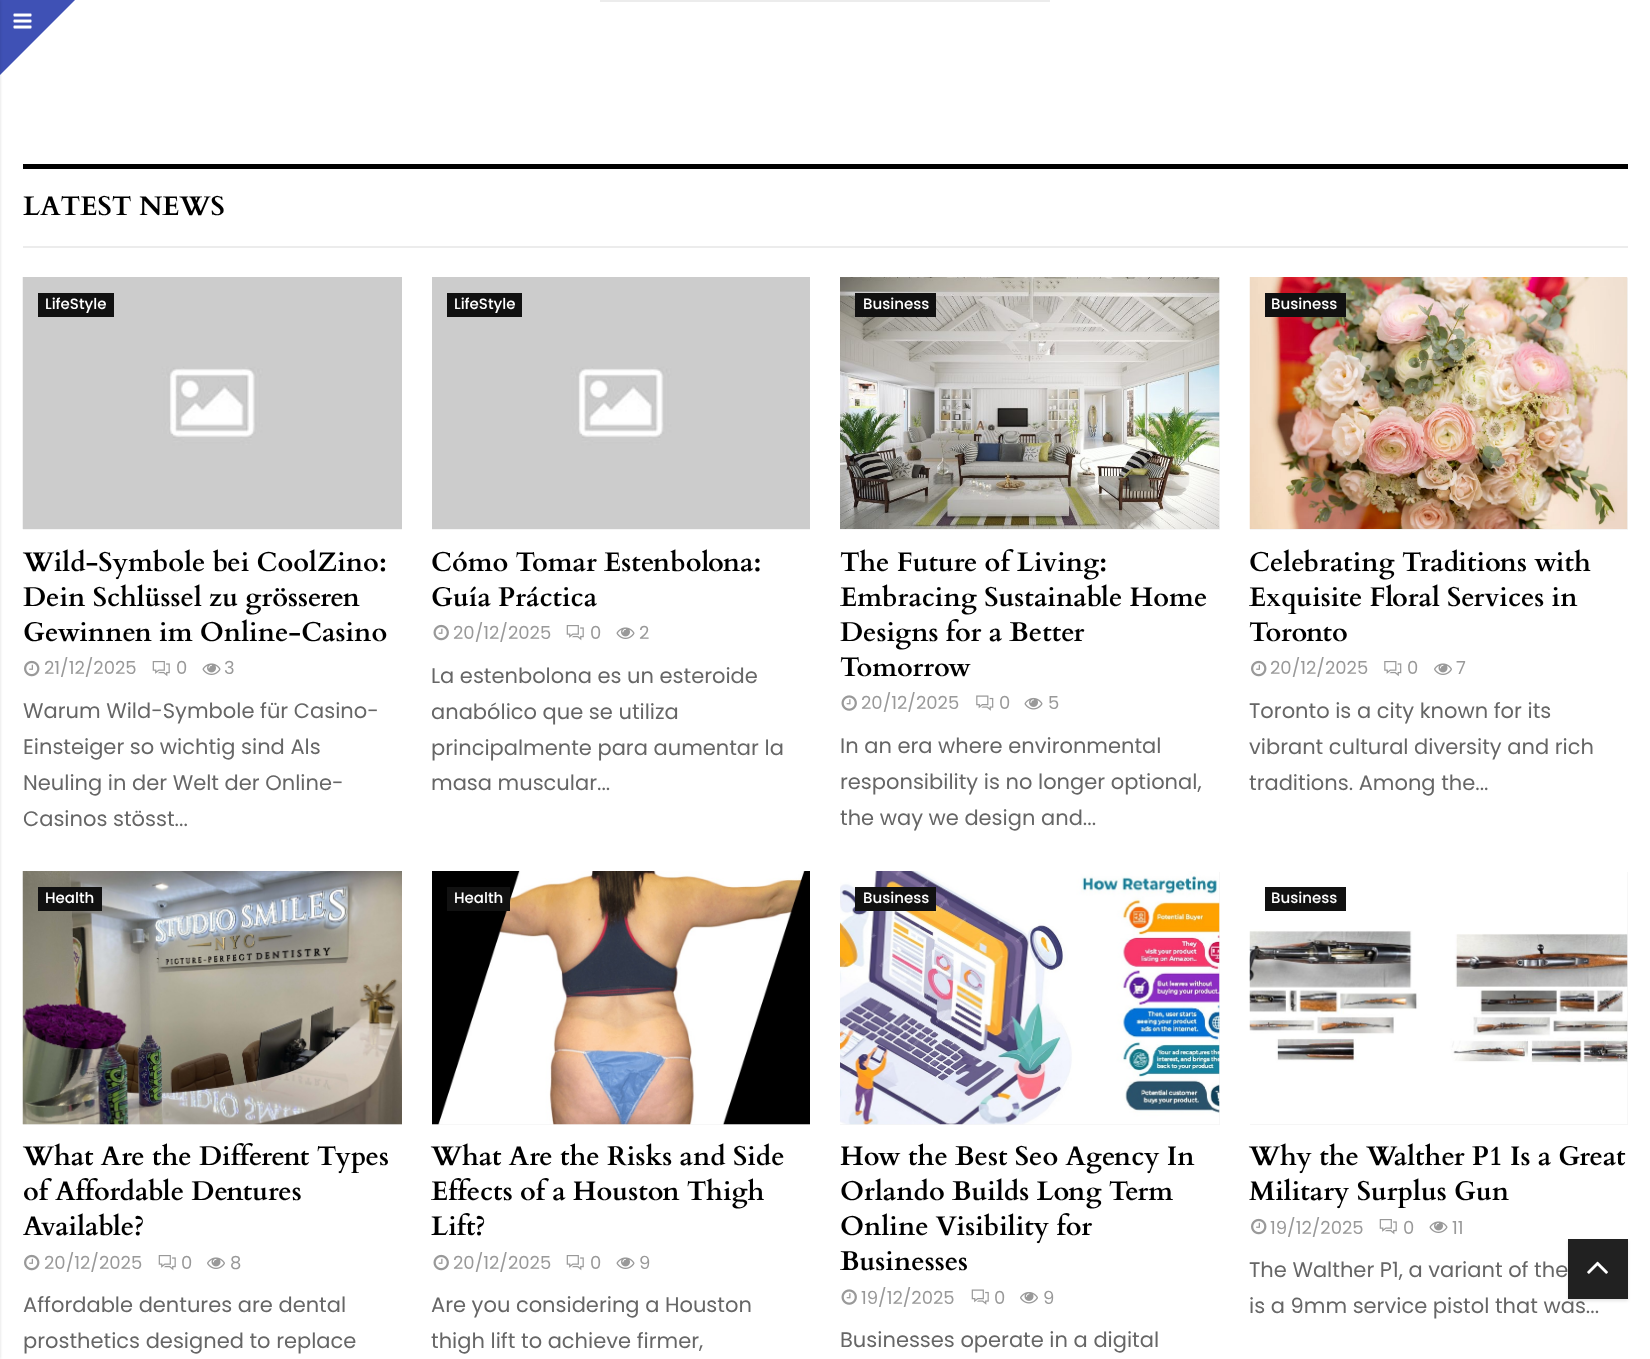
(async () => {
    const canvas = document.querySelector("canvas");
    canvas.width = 1650;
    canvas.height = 1359;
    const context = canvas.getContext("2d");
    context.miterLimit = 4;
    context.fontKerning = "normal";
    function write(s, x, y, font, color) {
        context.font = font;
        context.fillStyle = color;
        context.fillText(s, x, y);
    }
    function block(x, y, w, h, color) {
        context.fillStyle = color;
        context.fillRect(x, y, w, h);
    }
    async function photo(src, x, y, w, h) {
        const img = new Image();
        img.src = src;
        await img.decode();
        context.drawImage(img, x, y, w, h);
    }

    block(0, 0, 1650, 1359, "rgb(255, 255, 255)");
    context.fillStyle = "rgb(63, 81, 181)";
    context.beginPath();
    context.moveTo(0, 0);
    context.lineTo(75, 0);
    context.lineTo(0, 75);
    context.closePath();
    context.fill();
    await photo("media/1.png", 13, 13, 19, 16);
    context.fillStyle = "rgba(0, 0, 0, 0.15)";
    context.filter = "blur(1.5px)";
    context.beginPath();
    context.rect(-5, 0, 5, 1359);
    context.fill();
    context.filter = "none";
    context.strokeStyle = "rgb(236, 236, 236)";
    context.lineWidth = 2;
    context.strokeRect(601, -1, 448, 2);
    block(23, 246, 1605, 2, "rgb(236, 236, 236)");
    block(23, 164, 1605, 5, "rgb(0, 0, 0)");
    write("LATEST NEWS", 23, 215, "bold 27px Cardo", "rgb(0, 0, 0)");
    block(23, 529, 379, 1, "rgb(245, 245, 245)");
    await photo("media/2.png", 22, 277, 380, 252);
    block(38, 293, 76, 24, "rgb(17, 17, 17)");
    write("LifeStyle", 45, 309, "500 15px Poppins", "rgb(255, 255, 255)");
    write("Wild-Symbole bei CoolZino:", 23, 571, "bold 27px Cardo", "rgb(0, 0, 0)");
    write("Dein Schlüssel zu grösseren", 23, 606, "bold 27px Cardo", "rgb(0, 0, 0)");
    write("Gewinnen im Online-Casino", 23, 641, "bold 27px Cardo", "rgb(0, 0, 0)");
    await photo("media/3.png", 24, 660, 16, 17);
    write("21/12/2025", 44, 674, "18px Poppins", "rgb(153, 153, 153)");
    await photo("media/4.png", 152, 661, 18, 16);
    write("0", 176, 674, "18px Poppins", "rgb(153, 153, 153)");
    await photo("media/5.png", 202, 663, 19, 12);
    write("3", 224, 674, "18px Poppins", "rgb(153, 153, 153)");
    write("Warum Wild-Symbole für Casino-", 23, 718, "21px Poppins", "rgb(102, 102, 102)");
    write("Einsteiger so wichtig sind Als", 23, 754, "21px Poppins", "rgb(102, 102, 102)");
    write("Neuling in der Welt der Online-", 23, 790, "21px Poppins", "rgb(102, 102, 102)");
    write("Casinos stösst...", 23, 826, "21px Poppins", "rgb(102, 102, 102)");
    block(432, 529, 378, 1, "rgb(245, 245, 245)");
    await photo("media/6.png", 432, 277, 378, 252);
    block(447, 293, 75, 24, "rgb(17, 17, 17)");
    write("LifeStyle", 454, 309, "500 15px Poppins", "rgb(255, 255, 255)");
    write("Cómo Tomar Estenbolona:", 431, 571, "bold 27px Cardo", "rgb(0, 0, 0)");
    write("Guía Práctica", 431, 606, "bold 27px Cardo", "rgb(0, 0, 0)");
    await photo("media/7.png", 433, 624, 16, 17);
    write("20/12/2025", 453, 639, "18px Poppins", "rgb(153, 153, 153)");
    await photo("media/4.png", 566, 625, 18, 16);
    write("0", 590, 639, "18px Poppins", "rgb(153, 153, 153)");
    await photo("media/5.png", 616, 627, 19, 12);
    write("2", 639, 639, "18px Poppins", "rgb(153, 153, 153)");
    write("La estenbolona es un esteroide", 431, 683, "21px Poppins", "rgb(102, 102, 102)");
    write("anabólico que se utiliza", 431, 719, "21px Poppins", "rgb(102, 102, 102)");
    write("principalmente para aumentar la", 431, 755, "21px Poppins", "rgb(102, 102, 102)");
    write("masa muscular...", 431, 790, "21px Poppins", "rgb(102, 102, 102)");
    block(840, 278, 380, 252, "rgb(245, 245, 245)");
    await photo("media/8.png", 840, 277, 380, 252);
    block(855, 293, 81, 24, "rgb(17, 17, 17)");
    write("Business", 863, 309, "500 15px Poppins", "rgb(255, 255, 255)");
    write("The Future of Living:", 840, 571, "bold 27px Cardo", "rgb(0, 0, 0)");
    write("Embracing Sustainable Home", 840, 606, "bold 27px Cardo", "rgb(0, 0, 0)");
    write("Designs for a Better", 840, 641, "bold 27px Cardo", "rgb(0, 0, 0)");
    write("Tomorrow", 840, 676, "bold 27px Cardo", "rgb(0, 0, 0)");
    await photo("media/9.png", 841, 695, 16, 16);
    write("20/12/2025", 861, 709, "18px Poppins", "rgb(153, 153, 153)");
    await photo("media/10.png", 976, 695, 18, 16);
    write("0", 999, 709, "18px Poppins", "rgb(153, 153, 153)");
    await photo("media/11.png", 1024, 697, 19, 13);
    write("5", 1048, 709, "18px Poppins", "rgb(153, 153, 153)");
    write("In an era where environmental", 840, 753, "21px Poppins", "rgb(102, 102, 102)");
    write("responsibility is no longer optional,", 840, 789, "21px Poppins", "rgb(102, 102, 102)");
    write("the way we design and...", 840, 825, "21px Poppins", "rgb(102, 102, 102)");
    block(1250, 278, 378, 252, "rgb(245, 245, 245)");
    await photo("media/12.png", 1249, 277, 379, 252);
    block(1265, 293, 81, 24, "rgb(17, 17, 17)");
    write("Business", 1271, 309, "500 15px Poppins", "rgb(255, 255, 255)");
    write("Celebrating Traditions with", 1249, 571, "bold 27px Cardo", "rgb(0, 0, 0)");
    write("Exquisite Floral Services in", 1249, 606, "bold 27px Cardo", "rgb(0, 0, 0)");
    write("Toronto", 1249, 641, "bold 27px Cardo", "rgb(0, 0, 0)");
    await photo("media/3.png", 1251, 660, 16, 17);
    write("20/12/2025", 1270, 674, "18px Poppins", "rgb(153, 153, 153)");
    await photo("media/13.png", 1384, 661, 18, 16);
    write("0", 1407, 674, "18px Poppins", "rgb(153, 153, 153)");
    await photo("media/14.png", 1434, 663, 18, 12);
    write("7", 1456, 674, "18px Poppins", "rgb(153, 153, 153)");
    write("Toronto is a city known for its", 1249, 718, "21px Poppins", "rgb(102, 102, 102)");
    write("vibrant cultural diversity and rich", 1249, 754, "21px Poppins", "rgb(102, 102, 102)");
    write("traditions. Among the...", 1249, 790, "21px Poppins", "rgb(102, 102, 102)");
    block(23, 1124, 379, 1, "rgb(245, 245, 245)");
    await photo("media/15.png", 22, 871, 380, 254);
    block(38, 887, 64, 24, "rgb(17, 17, 17)");
    write("Health", 45, 903, "500 15px Poppins", "rgb(255, 255, 255)");
    write("What Are the Different Types", 23, 1165, "bold 27px Cardo", "rgb(0, 0, 0)");
    write("of Affordable Dentures", 23, 1200, "bold 27px Cardo", "rgb(0, 0, 0)");
    write("Available?", 23, 1235, "bold 27px Cardo", "rgb(0, 0, 0)");
    await photo("media/3.png", 24, 1254, 16, 17);
    write("20/12/2025", 44, 1269, "18px Poppins", "rgb(153, 153, 153)");
    await photo("media/4.png", 158, 1255, 18, 16);
    write("0", 181, 1269, "18px Poppins", "rgb(153, 153, 153)");
    await photo("media/14.png", 207, 1257, 18, 12);
    write("8", 230, 1269, "18px Poppins", "rgb(153, 153, 153)");
    write("Affordable dentures are dental", 23, 1312, "21px Poppins", "rgb(102, 102, 102)");
    write("prosthetics designed to replace", 23, 1348, "21px Poppins", "rgb(102, 102, 102)");
    block(432, 1124, 378, 1, "rgb(245, 245, 245)");
    await photo("media/16.png", 432, 871, 378, 254);
    block(447, 887, 63, 24, "rgb(17, 17, 17)");
    write("Health", 454, 903, "500 15px Poppins", "rgb(255, 255, 255)");
    write("What Are the Risks and Side", 431, 1165, "bold 27px Cardo", "rgb(0, 0, 0)");
    write("Effects of a Houston Thigh", 431, 1200, "bold 27px Cardo", "rgb(0, 0, 0)");
    write("Lift?", 431, 1235, "bold 27px Cardo", "rgb(0, 0, 0)");
    await photo("media/7.png", 433, 1254, 16, 17);
    write("20/12/2025", 453, 1269, "18px Poppins", "rgb(153, 153, 153)");
    await photo("media/4.png", 566, 1255, 18, 16);
    write("0", 590, 1269, "18px Poppins", "rgb(153, 153, 153)");
    await photo("media/5.png", 616, 1257, 19, 12);
    write("9", 639, 1269, "18px Poppins", "rgb(153, 153, 153)");
    write("Are you considering a Houston", 431, 1312, "21px Poppins", "rgb(102, 102, 102)");
    write("thigh lift to achieve firmer,", 431, 1348, "21px Poppins", "rgb(102, 102, 102)");
    block(840, 872, 380, 253, "rgb(245, 245, 245)");
    await photo("media/17.png", 840, 871, 380, 254);
    block(855, 887, 81, 24, "rgb(17, 17, 17)");
    write("Business", 863, 903, "500 15px Poppins", "rgb(255, 255, 255)");
    write("How the Best Seo Agency In", 840, 1165, "bold 27px Cardo", "rgb(0, 0, 0)");
    write("Orlando Builds Long Term", 840, 1200, "bold 27px Cardo", "rgb(0, 0, 0)");
    write("Online Visibility for", 840, 1235, "bold 27px Cardo", "rgb(0, 0, 0)");
    write("Businesses", 840, 1270, "bold 27px Cardo", "rgb(0, 0, 0)");
    await photo("media/9.png", 841, 1289, 16, 16);
    write("19/12/2025", 861, 1304, "18px Poppins", "rgb(153, 153, 153)");
    await photo("media/18.png", 971, 1289, 18, 16);
    write("0", 994, 1304, "18px Poppins", "rgb(153, 153, 153)");
    await photo("media/19.png", 1020, 1292, 18, 12);
    write("9", 1043, 1304, "18px Poppins", "rgb(153, 153, 153)");
    write("Businesses operate in a digital", 840, 1347, "21px Poppins", "rgb(102, 102, 102)");
    block(1250, 872, 378, 253, "rgb(245, 245, 245)");
    await photo("media/20.png", 1249, 872, 379, 252);
    block(1265, 887, 81, 24, "rgb(17, 17, 17)");
    write("Business", 1271, 903, "500 15px Poppins", "rgb(255, 255, 255)");
    write("Why the Walther P1 Is a Great", 1249, 1165, "bold 27px Cardo", "rgb(0, 0, 0)");
    write("Military Surplus Gun", 1249, 1200, "bold 27px Cardo", "rgb(0, 0, 0)");
    await photo("media/3.png", 1251, 1218, 16, 17);
    write("19/12/2025", 1270, 1234, "18px Poppins", "rgb(153, 153, 153)");
    await photo("media/4.png", 1379, 1219, 18, 16);
    write("0", 1403, 1234, "18px Poppins", "rgb(153, 153, 153)");
    await photo("media/5.png", 1429, 1221, 19, 12);
    write("11", 1452, 1234, "18px Poppins", "rgb(153, 153, 153)");
    write("The Walther P1, a variant of the", 1249, 1277, "21px Poppins", "rgb(102, 102, 102)");
    write("is a 9mm service pistol that was...", 1249, 1313, "21px Poppins", "rgb(102, 102, 102)");
    context.fillStyle = "rgba(0, 0, 0, 0.1)";
    context.filter = "blur(1.5px)";
    context.beginPath();
    context.rect(1568, 1241, 60, 60);
    context.fill();
    context.filter = "none";
    block(1568, 1239, 60, 60, "rgb(33, 33, 33)");
    await photo("media/21.png", 1587, 1261, 21, 13);
})();
